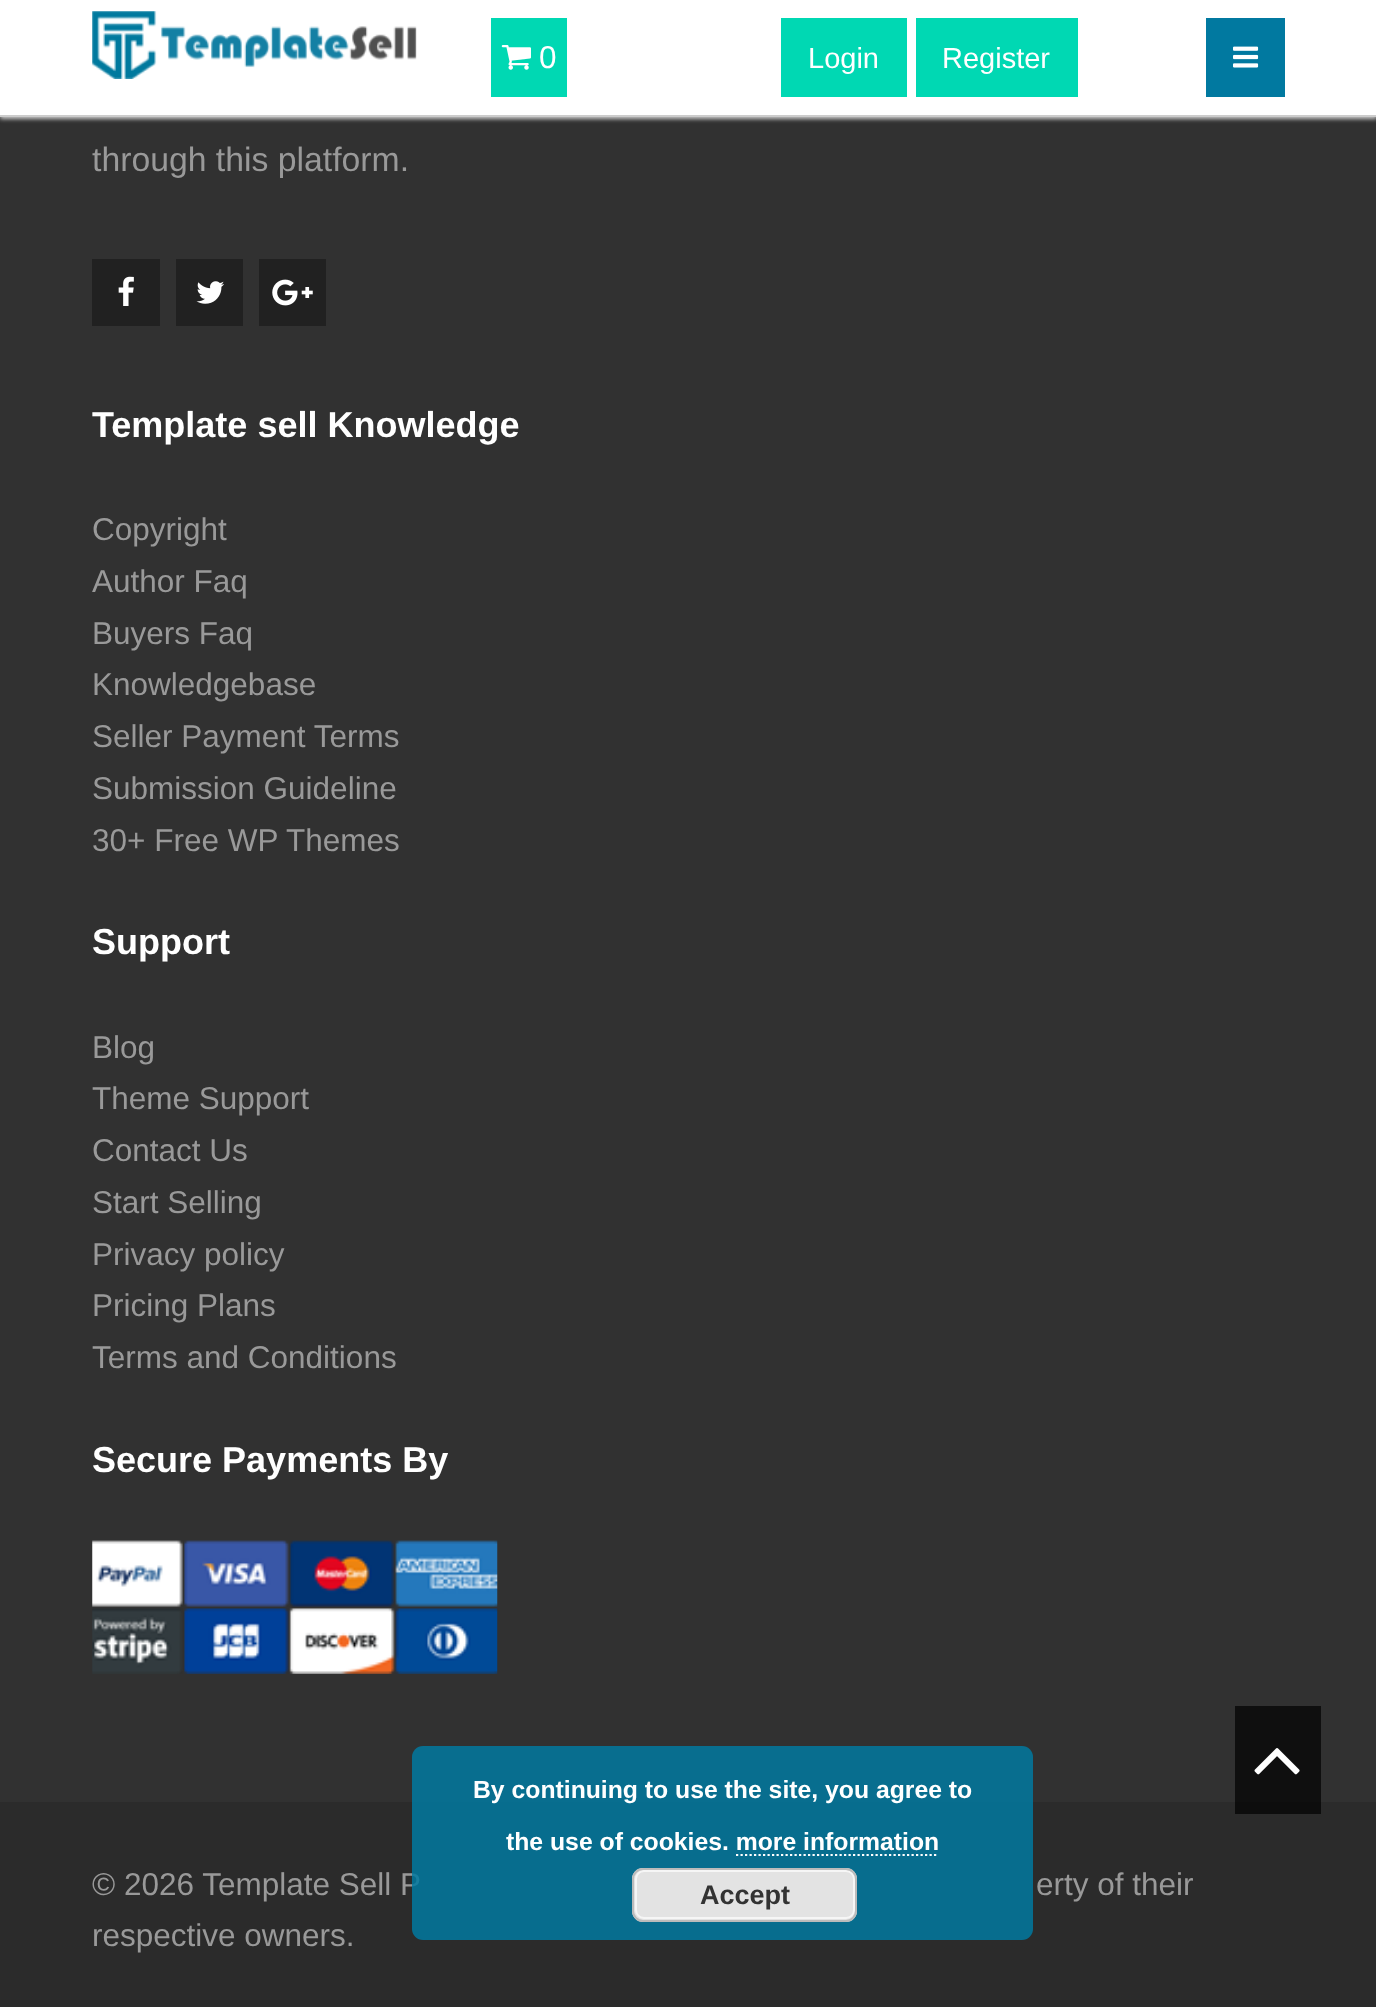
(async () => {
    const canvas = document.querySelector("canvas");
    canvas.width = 1376;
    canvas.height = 2007;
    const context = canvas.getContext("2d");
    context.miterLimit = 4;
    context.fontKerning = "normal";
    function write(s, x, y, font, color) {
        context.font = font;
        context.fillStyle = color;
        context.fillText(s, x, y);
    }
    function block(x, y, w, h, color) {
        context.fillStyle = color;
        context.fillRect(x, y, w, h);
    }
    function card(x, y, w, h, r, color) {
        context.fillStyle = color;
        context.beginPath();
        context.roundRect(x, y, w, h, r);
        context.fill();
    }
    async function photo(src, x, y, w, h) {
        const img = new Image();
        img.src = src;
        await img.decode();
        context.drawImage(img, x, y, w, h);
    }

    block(0, 0, 1376, 2007, "rgb(49, 49, 49)");
    context.fillStyle = "rgb(204, 204, 204)";
    context.filter = "blur(2px)";
    context.beginPath();
    context.rect(0, 2, 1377, 117);
    context.fill();
    context.filter = "none";
    block(0, 0, 1376, 115, "rgb(255, 255, 255)");
    block(0, 115, 1376, 2, "rgb(204, 204, 204)");
    await photo("media/1.png", 92, 11, 325, 68);
    block(491, 18, 76, 79, "rgb(0, 216, 179)");
    await photo("media/2.png", 501, 45, 30, 25);
    write("0", 539, 68, "31.5px Liberation Sans", "rgb(255, 255, 255)");
    block(781, 18, 126, 79, "rgb(0, 216, 179)");
    write("Login", 808, 68, "29px Liberation Sans", "rgb(255, 255, 255)");
    block(916, 18, 162, 79, "rgb(0, 216, 179)");
    write("Register", 942, 68, "29px Liberation Sans", "rgb(255, 255, 255)");
    block(1206, 18, 79, 79, "rgb(1, 121, 160)");
    await photo("media/3.png", 1233, 46, 26, 22);
    block(1235, 1706, 86, 96, "rgb(15, 15, 15)");
    write("through this platform.", 92, 171, "33.75px Liberation Sans", "rgb(153, 153, 153)");
    block(92, 259, 68, 67, "rgb(33, 33, 33)");
    await photo("media/4.png", 118, 276, 16, 30);
    block(176, 259, 67, 67, "rgb(33, 33, 33)");
    await photo("media/5.png", 196, 281, 28, 23);
    block(259, 259, 67, 67, "rgb(33, 33, 33)");
    await photo("media/6.png", 272, 279, 41, 27);
    write("Template sell Knowledge", 92, 437, "bold 36px Liberation Sans", "rgb(255, 255, 255)");
    write("Copyright", 92, 540, "31.5px Liberation Sans", "rgb(153, 153, 153)");
    write("Author Faq", 92, 592, "31.5px Liberation Sans", "rgb(153, 153, 153)");
    write("Buyers Faq", 92, 644, "31.5px Liberation Sans", "rgb(153, 153, 153)");
    write("Knowledgebase", 92, 695, "31.5px Liberation Sans", "rgb(153, 153, 153)");
    write("Seller Payment Terms", 92, 747, "31.5px Liberation Sans", "rgb(153, 153, 153)");
    write("Submission Guideline", 92, 799, "31.5px Liberation Sans", "rgb(153, 153, 153)");
    write("30+ Free WP Themes", 92, 851, "31.5px Liberation Sans", "rgb(153, 153, 153)");
    write("Support", 92, 954, "bold 36px Liberation Sans", "rgb(255, 255, 255)");
    write("Blog", 92, 1058, "31.5px Liberation Sans", "rgb(153, 153, 153)");
    write("Theme Support", 92, 1109, "31.5px Liberation Sans", "rgb(153, 153, 153)");
    write("Contact Us", 92, 1161, "31.5px Liberation Sans", "rgb(153, 153, 153)");
    write("Start Selling", 92, 1213, "31.5px Liberation Sans", "rgb(153, 153, 153)");
    write("Privacy policy", 92, 1265, "31.5px Liberation Sans", "rgb(153, 153, 153)");
    write("Pricing Plans", 92, 1316, "31.5px Liberation Sans", "rgb(153, 153, 153)");
    write("Terms and Conditions", 92, 1368, "31.5px Liberation Sans", "rgb(153, 153, 153)");
    write("Secure Payments By", 92, 1472, "bold 36px Liberation Sans", "rgb(255, 255, 255)");
    await photo("media/7.png", 92, 1540, 406, 134);
    await photo("media/8.png", 1254, 1748, 46, 27);
    block(0, 1802, 1376, 205, "rgb(43, 43, 43)");
    write("© 2026 Template Sell P", 92, 1895, "31.5px Liberation Sans", "rgb(153, 153, 153)");
    card(412, 1746, 621, 194, 11, "rgba(1, 121, 160, 0.85)");
    write("By continuing to use the site, you agree to", 473, 1798, "bold 24.75px Liberation Sans", "rgb(255, 255, 255)");
    write("the use of cookies. more information", 506, 1850, "bold 24.75px Liberation Sans", "rgb(255, 255, 255)");
    context.beginPath();
    context.moveTo(736, 1855);
    context.lineTo(938, 1855);
    context.strokeStyle = "rgb(255, 255, 255)";
    context.lineWidth = 2.2;
    context.setLineDash([2.25, 2.25]);
    context.stroke();
    card(632, 1868, 225, 54, 11, "rgb(227, 227, 227)");
    context.beginPath();
    context.roundRect(636, 1871, 218, 47, 8);
    context.strokeStyle = "rgb(246, 246, 246)";
    context.lineWidth = 2;
    context.setLineDash([]);
    context.stroke();
    context.beginPath();
    context.roundRect(633, 1869, 223, 52, 10);
    context.strokeStyle = "rgb(187, 187, 187)";
    context.stroke();
    write("Accept", 700, 1904, "bold 27px Liberation Sans", "rgb(51, 51, 51)");
    block(1235, 1802, 86, 12, "rgb(13, 13, 13)");
    write("erty of their", 1036, 1895, "31.5px Liberation Sans", "rgb(153, 153, 153)");
    write("respective owners.", 92, 1946, "31.5px Liberation Sans", "rgb(153, 153, 153)");
})();
